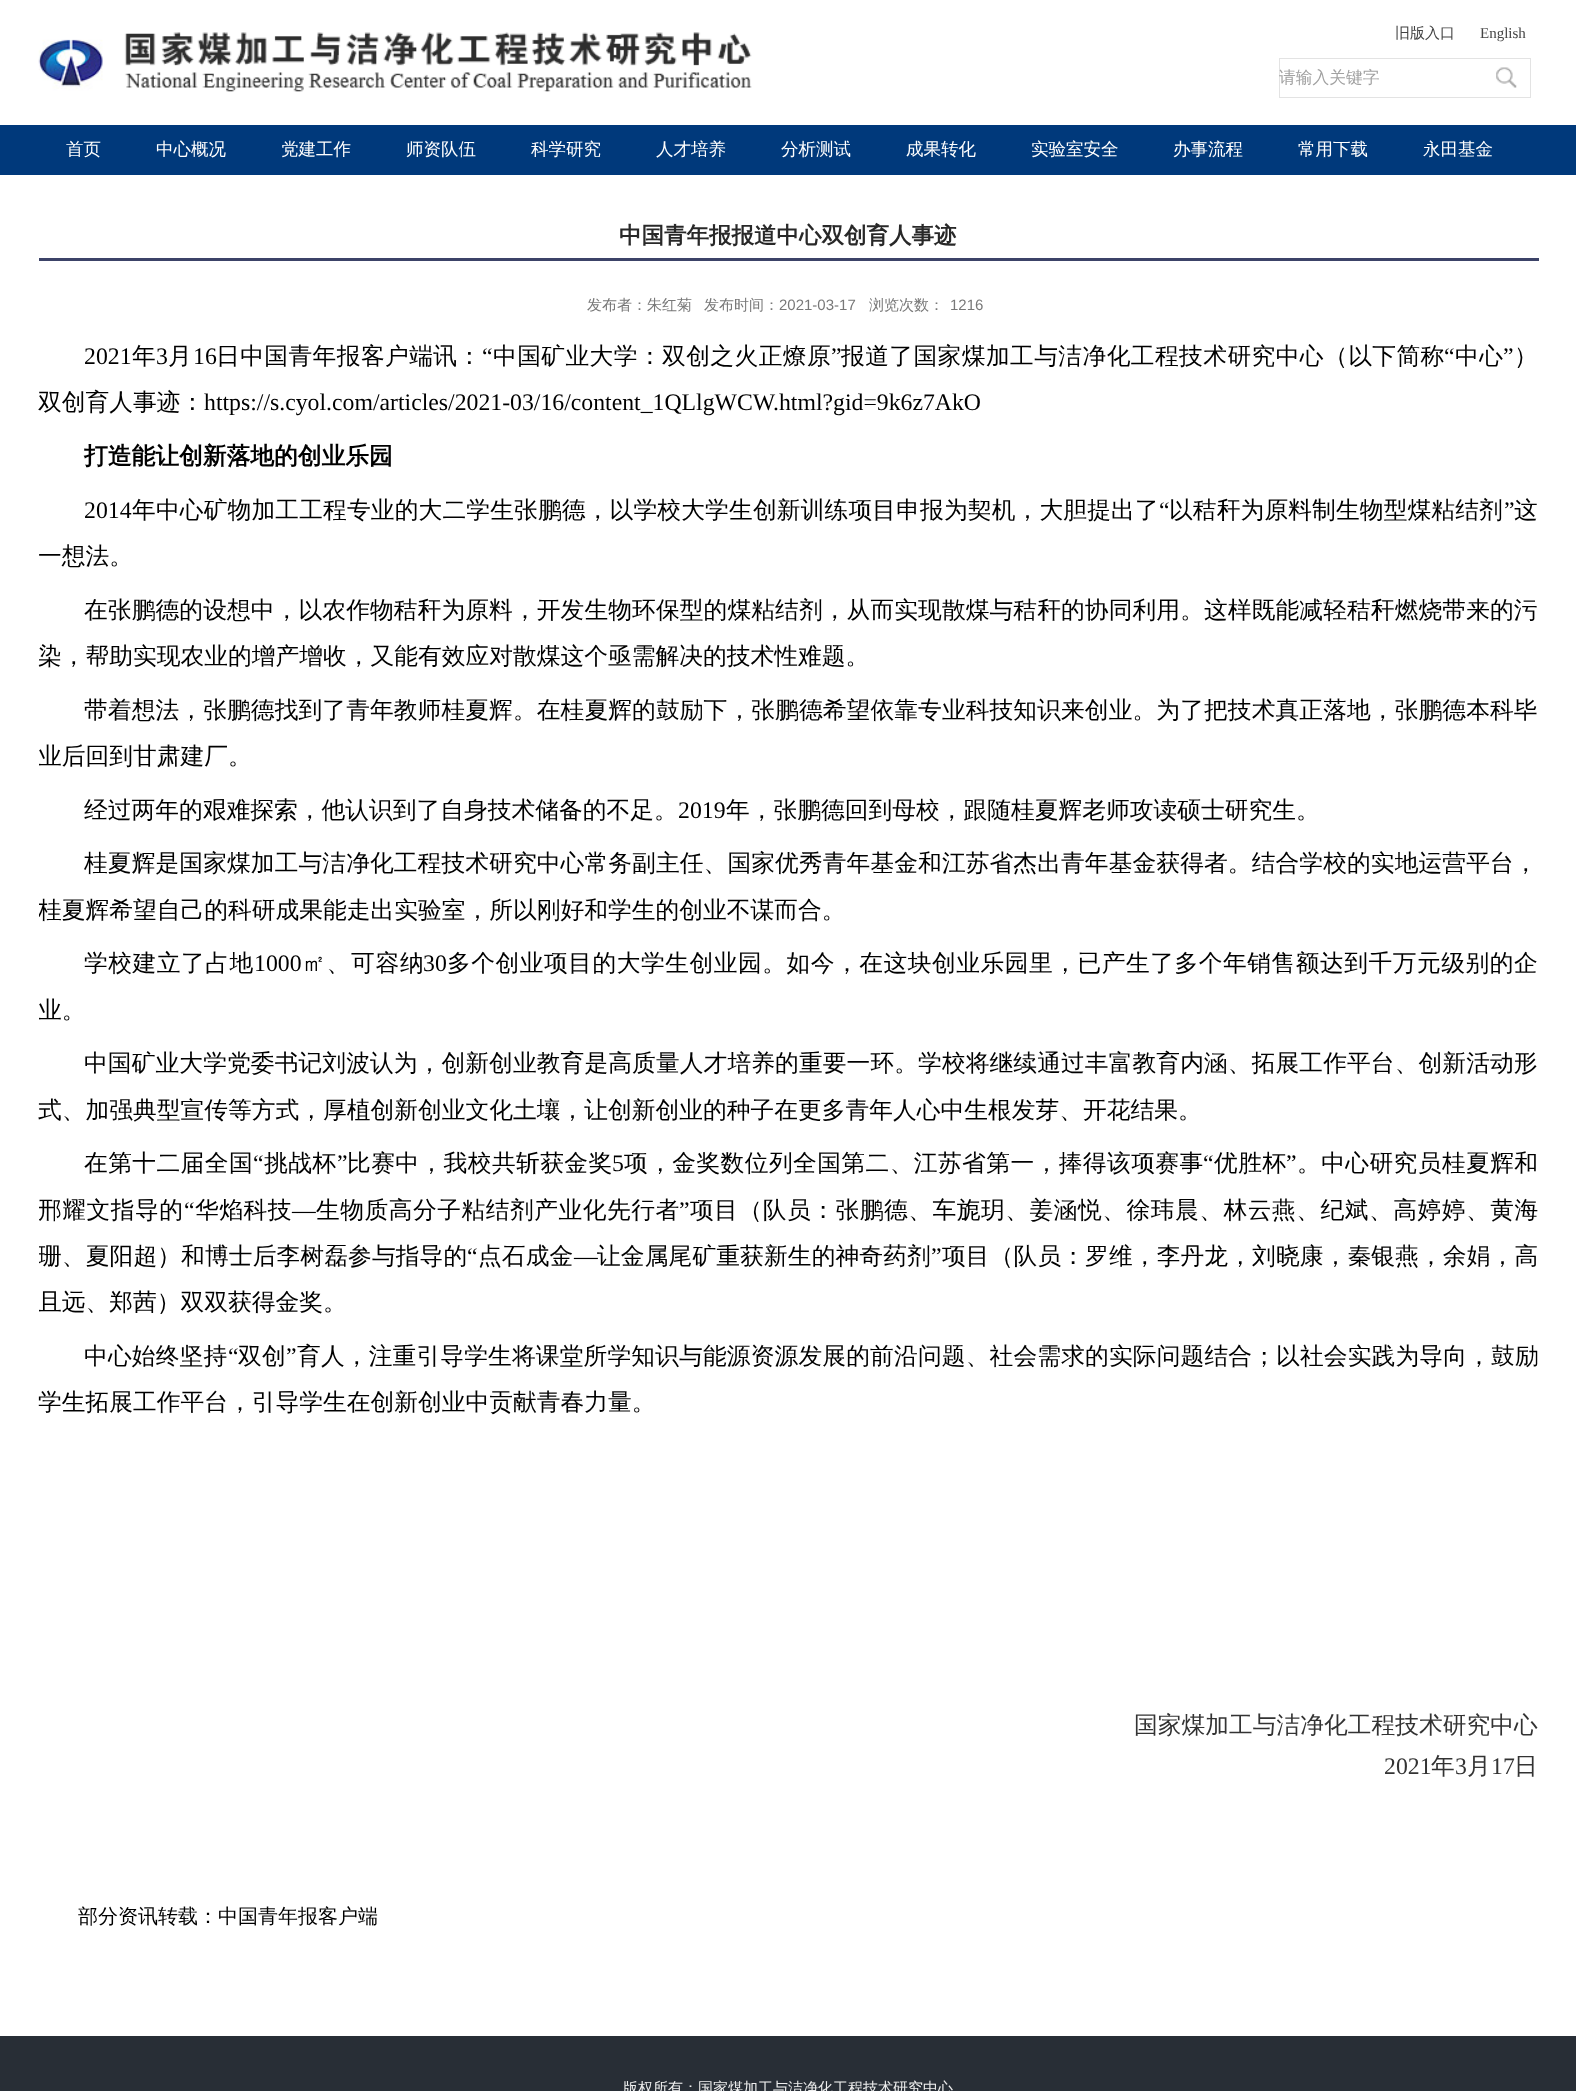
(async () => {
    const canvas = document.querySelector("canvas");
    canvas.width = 1576;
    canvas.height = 2091;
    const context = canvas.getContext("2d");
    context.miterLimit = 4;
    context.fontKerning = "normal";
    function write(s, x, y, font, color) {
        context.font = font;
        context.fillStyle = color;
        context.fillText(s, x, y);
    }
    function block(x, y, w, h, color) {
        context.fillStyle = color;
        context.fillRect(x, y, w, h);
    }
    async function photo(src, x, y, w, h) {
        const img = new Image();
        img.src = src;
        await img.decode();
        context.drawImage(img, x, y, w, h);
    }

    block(0, 0, 1576, 2091, "rgb(255, 255, 255)");
    await photo("media/1.png", 38, 32, 714, 60);
    write("旧版入口", 1395, 38, "500 15px WenQuanYi Zen Hei", "rgb(67, 67, 67)");
    write("English", 1480, 38, "15px Liberation Serif", "rgb(67, 67, 67)");
    context.strokeStyle = "rgb(227, 227, 227)";
    context.strokeRect(1279.5, 58.5, 251, 39);
    write("请输入关键字", 1279, 83, "500 16.75px WenQuanYi Zen Hei", "rgb(161, 161, 161)");
    await photo("media/2.png", 1496, 67, 21, 21);
    block(0, 125, 1576, 50, "rgb(0, 57, 123)");
    write("首页", 66, 155, "500 17.5px WenQuanYi Zen Hei", "rgb(255, 255, 255)");
    write("中心概况", 156, 155, "500 17.5px WenQuanYi Zen Hei", "rgb(255, 255, 255)");
    write("党建工作", 281, 155, "500 17.5px WenQuanYi Zen Hei", "rgb(255, 255, 255)");
    write("师资队伍", 406, 155, "500 17.5px WenQuanYi Zen Hei", "rgb(255, 255, 255)");
    write("科学研究", 531, 155, "500 17.5px WenQuanYi Zen Hei", "rgb(255, 255, 255)");
    write("人才培养", 656, 155, "500 17.5px WenQuanYi Zen Hei", "rgb(255, 255, 255)");
    write("分析测试", 781, 155, "500 17.5px WenQuanYi Zen Hei", "rgb(255, 255, 255)");
    write("成果转化", 906, 155, "500 17.5px WenQuanYi Zen Hei", "rgb(255, 255, 255)");
    write("实验室安全", 1031, 155, "500 17.5px WenQuanYi Zen Hei", "rgb(255, 255, 255)");
    write("办事流程", 1173, 155, "500 17.5px WenQuanYi Zen Hei", "rgb(255, 255, 255)");
    write("常用下载", 1298, 155, "500 17.5px WenQuanYi Zen Hei", "rgb(255, 255, 255)");
    write("永田基金", 1423, 155, "500 17.5px WenQuanYi Zen Hei", "rgb(255, 255, 255)");
    block(39, 258, 1500, 3, "rgb(60, 67, 104)");
    write("中国青年报报道中心双创育人事迹", 619, 243, "bold 22.5px WenQuanYi Zen Hei", "rgb(40, 40, 40)");
    write("发布者：朱红菊", 587, 310, "500 15px WenQuanYi Zen Hei", "rgb(120, 120, 120)");
    write("发布时间：", 704, 310, "500 15px WenQuanYi Zen Hei", "rgb(120, 120, 120)");
    write("2021-03-17", 779, 310, "15px Liberation Sans", "rgb(120, 120, 120)");
    write("浏览次数：", 869, 310, "500 15px WenQuanYi Zen Hei", "rgb(120, 120, 120)");
    write("1216", 950, 310, "15px Liberation Sans", "rgb(120, 120, 120)");
    write("2021", 84, 364, "23.75px Liberation Serif", "rgb(0, 0, 0)");
    write("年", 132, 364, "500 23.75px WenQuanYi Zen Hei", "rgb(0, 0, 0)");
    write("3", 156, 364, "23.75px Liberation Serif", "rgb(0, 0, 0)");
    write("月", 168, 364, "500 23.75px WenQuanYi Zen Hei", "rgb(0, 0, 0)");
    write("16", 193, 364, "23.75px Liberation Serif", "rgb(0, 0, 0)");
    context.letterSpacing = "0.4px";
    write("日中国青年报客户端讯：", 216, 364, "500 23.75px WenQuanYi Zen Hei", "rgb(0, 0, 0)");
    write("“", 482, 364, "23.75px Liberation Serif", "rgb(0, 0, 0)");
    write("中国矿业大学：双创之火正燎原", 493, 364, "500 23.75px WenQuanYi Zen Hei", "rgb(0, 0, 0)");
    write("”", 831, 364, "23.75px Liberation Serif", "rgb(0, 0, 0)");
    write("报道了国家煤加工与洁净化工程技术研究中心（以下简称", 841, 364, "500 23.75px WenQuanYi Zen Hei", "rgb(0, 0, 0)");
    write("“", 1444, 364, "23.75px Liberation Serif", "rgb(0, 0, 0)");
    write("中心", 1455, 364, "500 23.75px WenQuanYi Zen Hei", "rgb(0, 0, 0)");
    write("”", 1503, 364, "23.75px Liberation Serif", "rgb(0, 0, 0)");
    write("）", 1514, 364, "500 23.75px WenQuanYi Zen Hei", "rgb(0, 0, 0)");
    context.letterSpacing = "0px";
    write("双创育人事迹：", 38, 410, "500 23.75px WenQuanYi Zen Hei", "rgb(0, 0, 0)");
    write("https://s.cyol.com/articles/2021-03/16/content_1QLlgWCW.html?gid=9k6z7AkO", 204, 410, "23.75px Liberation Serif", "rgb(0, 0, 0)");
    write("打造能让创新落地的创业乐园", 84, 464, "bold 23.75px WenQuanYi Zen Hei", "rgb(0, 0, 0)");
    write("2014", 84, 518, "23.75px Liberation Serif", "rgb(0, 0, 0)");
    context.letterSpacing = "0.13px";
    write("年中心矿物加工工程专业的大二学生张鹏德，以学校大学生创新训练项目申报为契机，大胆提出了", 132, 518, "500 23.75px WenQuanYi Zen Hei", "rgb(0, 0, 0)");
    write("“", 1159, 518, "23.75px Liberation Serif", "rgb(0, 0, 0)");
    context.letterSpacing = "0.1px";
    write("以秸秆为原料制生物型煤粘结剂", 1169, 518, "500 23.75px WenQuanYi Zen Hei", "rgb(0, 0, 0)");
    write("”", 1504, 518, "23.75px Liberation Serif", "rgb(0, 0, 0)");
    write("这", 1514, 518, "500 23.75px WenQuanYi Zen Hei", "rgb(0, 0, 0)");
    context.letterSpacing = "0px";
    write("一想法。", 38, 564, "500 23.75px WenQuanYi Zen Hei", "rgb(0, 0, 0)");
    context.letterSpacing = "0.08px";
    write("在张鹏德的设想中，以农作物秸秆为原料，开发生物环保型的煤粘结剂，从而实现散煤与秸秆的协同利用。这样既能减轻秸秆燃烧带来的污", 84, 618, "500 23.75px WenQuanYi Zen Hei", "rgb(0, 0, 0)");
    context.letterSpacing = "0px";
    write("染，帮助实现农业的增产增收，又能有效应对散煤这个亟需解决的技术性难题。", 38, 664, "500 23.75px WenQuanYi Zen Hei", "rgb(0, 0, 0)");
    context.letterSpacing = "0.08px";
    write("带着想法，张鹏德找到了青年教师桂夏辉。在桂夏辉的鼓励下，张鹏德希望依靠专业科技知识来创业。为了把技术真正落地，张鹏德本科毕", 84, 718, "500 23.75px WenQuanYi Zen Hei", "rgb(0, 0, 0)");
    context.save();
    context.beginPath();
    context.rect(39, 325, 1500, 1711);
    context.clip();
    context.letterSpacing = "0px";
    write("业后回到甘肃建厂。", 38, 764, "500 23.75px WenQuanYi Zen Hei", "rgb(0, 0, 0)");
    context.restore();
    context.letterSpacing = "0px";
    write("经过两年的艰难探索，他认识到了自身技术储备的不足。", 84, 818, "500 23.75px WenQuanYi Zen Hei", "rgb(0, 0, 0)");
    write("2019", 678, 818, "23.75px Liberation Serif", "rgb(0, 0, 0)");
    write("年，张鹏德回到母校，跟随桂夏辉老师攻读硕士研究生。", 726, 818, "500 23.75px WenQuanYi Zen Hei", "rgb(0, 0, 0)");
    context.letterSpacing = "0.08px";
    write("桂夏辉是国家煤加工与洁净化工程技术研究中心常务副主任、国家优秀青年基金和江苏省杰出青年基金获得者。结合学校的实地运营平台，", 84, 871, "500 23.75px WenQuanYi Zen Hei", "rgb(0, 0, 0)");
    context.save();
    context.beginPath();
    context.rect(39, 325, 1500, 1711);
    context.clip();
    context.letterSpacing = "0px";
    write("桂夏辉希望自己的科研成果能走出实验室，所以刚好和学生的创业不谋而合。", 38, 918, "500 23.75px WenQuanYi Zen Hei", "rgb(0, 0, 0)");
    context.restore();
    context.letterSpacing = "0.5px";
    write("学校建立了占地", 84, 971, "500 23.75px WenQuanYi Zen Hei", "rgb(0, 0, 0)");
    context.letterSpacing = "0px";
    write("1000", 254, 971, "23.75px Liberation Serif", "rgb(0, 0, 0)");
    context.letterSpacing = "0.75px";
    write("㎡、可容纳", 302, 971, "500 23.75px WenQuanYi Zen Hei", "rgb(0, 0, 0)");
    context.letterSpacing = "0px";
    write("30", 423, 971, "23.75px Liberation Serif", "rgb(0, 0, 0)");
    context.letterSpacing = "0.5px";
    write("多个创业项目的大学生创业园。如今，在这块创业乐园里，已产生了多个年销售额达到千万元级别的企", 447, 971, "500 23.75px WenQuanYi Zen Hei", "rgb(0, 0, 0)");
    context.save();
    context.beginPath();
    context.rect(39, 325, 1500, 1711);
    context.clip();
    context.letterSpacing = "0px";
    write("业。", 38, 1018, "500 23.75px WenQuanYi Zen Hei", "rgb(0, 0, 0)");
    context.restore();
    context.letterSpacing = "0.08px";
    write("中国矿业大学党委书记刘波认为，创新创业教育是高质量人才培养的重要一环。学校将继续通过丰富教育内涵、拓展工作平台、创新活动形", 84, 1071, "500 23.75px WenQuanYi Zen Hei", "rgb(0, 0, 0)");
    context.letterSpacing = "0px";
    write("式、加强典型宣传等方式，厚植创新创业文化土壤，让创新创业的种子在更多青年人心中生根发芽、开花结果。", 38, 1118, "500 23.75px WenQuanYi Zen Hei", "rgb(0, 0, 0)");
    context.letterSpacing = "0.4px";
    write("在第十二届全国", 84, 1171, "500 23.75px WenQuanYi Zen Hei", "rgb(0, 0, 0)");
    write("“", 253, 1171, "23.75px Liberation Serif", "rgb(0, 0, 0)");
    write("挑战杯", 264, 1171, "500 23.75px WenQuanYi Zen Hei", "rgb(0, 0, 0)");
    write("”", 337, 1171, "23.75px Liberation Serif", "rgb(0, 0, 0)");
    write("比赛中，我校共斩获金奖", 347, 1171, "500 23.75px WenQuanYi Zen Hei", "rgb(0, 0, 0)");
    context.letterSpacing = "0px";
    write("5", 612, 1171, "23.75px Liberation Serif", "rgb(0, 0, 0)");
    context.letterSpacing = "0.4px";
    write("项，金奖数位列全国第二、江苏省第一，捧得该项赛事", 624, 1171, "500 23.75px WenQuanYi Zen Hei", "rgb(0, 0, 0)");
    write("“", 1203, 1171, "23.75px Liberation Serif", "rgb(0, 0, 0)");
    write("优胜杯", 1214, 1171, "500 23.75px WenQuanYi Zen Hei", "rgb(0, 0, 0)");
    write("”", 1286, 1171, "23.75px Liberation Serif", "rgb(0, 0, 0)");
    write("。中心研究员桂夏辉和", 1297, 1171, "500 23.75px WenQuanYi Zen Hei", "rgb(0, 0, 0)");
    context.save();
    context.beginPath();
    context.rect(39, 325, 1500, 1711);
    context.clip();
    context.letterSpacing = "0.5px";
    write("邢耀文指导的", 38, 1218, "500 23.75px WenQuanYi Zen Hei", "rgb(0, 0, 0)");
    context.restore();
    context.letterSpacing = "0.5px";
    write("“", 184, 1218, "23.75px Liberation Serif", "rgb(0, 0, 0)");
    write("华焰科技", 195, 1218, "500 23.75px WenQuanYi Zen Hei", "rgb(0, 0, 0)");
    write("—", 292, 1218, "23.75px Liberation Serif", "rgb(0, 0, 0)");
    write("生物质高分子粘结剂产业化先行者", 316, 1218, "500 23.75px WenQuanYi Zen Hei", "rgb(0, 0, 0)");
    write("”", 679, 1218, "23.75px Liberation Serif", "rgb(0, 0, 0)");
    write("项目（队员：张鹏德、车旎玥、姜涵悦、徐玮晨、林云燕、纪斌、高婷婷、黄海", 690, 1218, "500 23.75px WenQuanYi Zen Hei", "rgb(0, 0, 0)");
    context.save();
    context.beginPath();
    context.rect(39, 325, 1500, 1711);
    context.clip();
    context.letterSpacing = "0.1px";
    write("珊、夏阳超）和博士后李树磊参与指导的", 38, 1264, "500 23.75px WenQuanYi Zen Hei", "rgb(0, 0, 0)");
    context.restore();
    context.letterSpacing = "0.1px";
    write("“", 467, 1264, "23.75px Liberation Serif", "rgb(0, 0, 0)");
    write("点石成金", 478, 1264, "500 23.75px WenQuanYi Zen Hei", "rgb(0, 0, 0)");
    write("—", 574, 1264, "23.75px Liberation Serif", "rgb(0, 0, 0)");
    write("让金属尾矿重获新生的神奇药剂", 597, 1264, "500 23.75px WenQuanYi Zen Hei", "rgb(0, 0, 0)");
    write("”", 931, 1264, "23.75px Liberation Serif", "rgb(0, 0, 0)");
    write("项目（队员：罗维，李丹龙，刘晓康，秦银燕，余娟，高", 942, 1264, "500 23.75px WenQuanYi Zen Hei", "rgb(0, 0, 0)");
    context.save();
    context.beginPath();
    context.rect(39, 325, 1500, 1711);
    context.clip();
    context.letterSpacing = "0px";
    write("且远、郑茜）双双获得金奖。", 38, 1310, "500 23.75px WenQuanYi Zen Hei", "rgb(0, 0, 0)");
    context.restore();
    context.letterSpacing = "0.13px";
    write("中心始终坚持", 84, 1364, "500 23.75px WenQuanYi Zen Hei", "rgb(0, 0, 0)");
    write("“", 228, 1364, "23.75px Liberation Serif", "rgb(0, 0, 0)");
    write("双创", 238, 1364, "500 23.75px WenQuanYi Zen Hei", "rgb(0, 0, 0)");
    write("”", 286, 1364, "23.75px Liberation Serif", "rgb(0, 0, 0)");
    write("育人，注重引导学生将课堂所学知识与能源资源发展的前沿问题、社会需求的实际问题结合；以社会实践为导向，鼓励", 297, 1364, "500 23.75px WenQuanYi Zen Hei", "rgb(0, 0, 0)");
    context.letterSpacing = "0px";
    write("学生拓展工作平台，引导学生在创新创业中贡献青春力量。", 38, 1410, "500 23.75px WenQuanYi Zen Hei", "rgb(0, 0, 0)");
    write("国家煤加工与洁净化工程技术研究中心", 1134, 1733, "500 23.75px WenQuanYi Zen Hei", "rgb(51, 51, 51)");
    write("2021", 1384, 1774, "23.75px Liberation Serif", "rgb(51, 51, 51)");
    write("年", 1431, 1774, "500 23.75px WenQuanYi Zen Hei", "rgb(51, 51, 51)");
    write("3", 1455, 1774, "23.75px Liberation Serif", "rgb(51, 51, 51)");
    write("月", 1467, 1774, "500 23.75px WenQuanYi Zen Hei", "rgb(51, 51, 51)");
    write("17", 1491, 1774, "23.75px Liberation Serif", "rgb(51, 51, 51)");
    write("日", 1514, 1774, "500 23.75px WenQuanYi Zen Hei", "rgb(51, 51, 51)");
    write("部分资讯转载：中国青年报客户端", 78, 1923, "500 20px WenQuanYi Zen Hei", "rgb(0, 0, 0)");
    block(0, 2036, 1576, 55, "rgb(40, 46, 54)");
    write("版权所有：国家煤加工与洁净化工程技术研究中心", 623, 2093, "500 15px WenQuanYi Zen Hei", "rgb(239, 239, 239)");
})();
